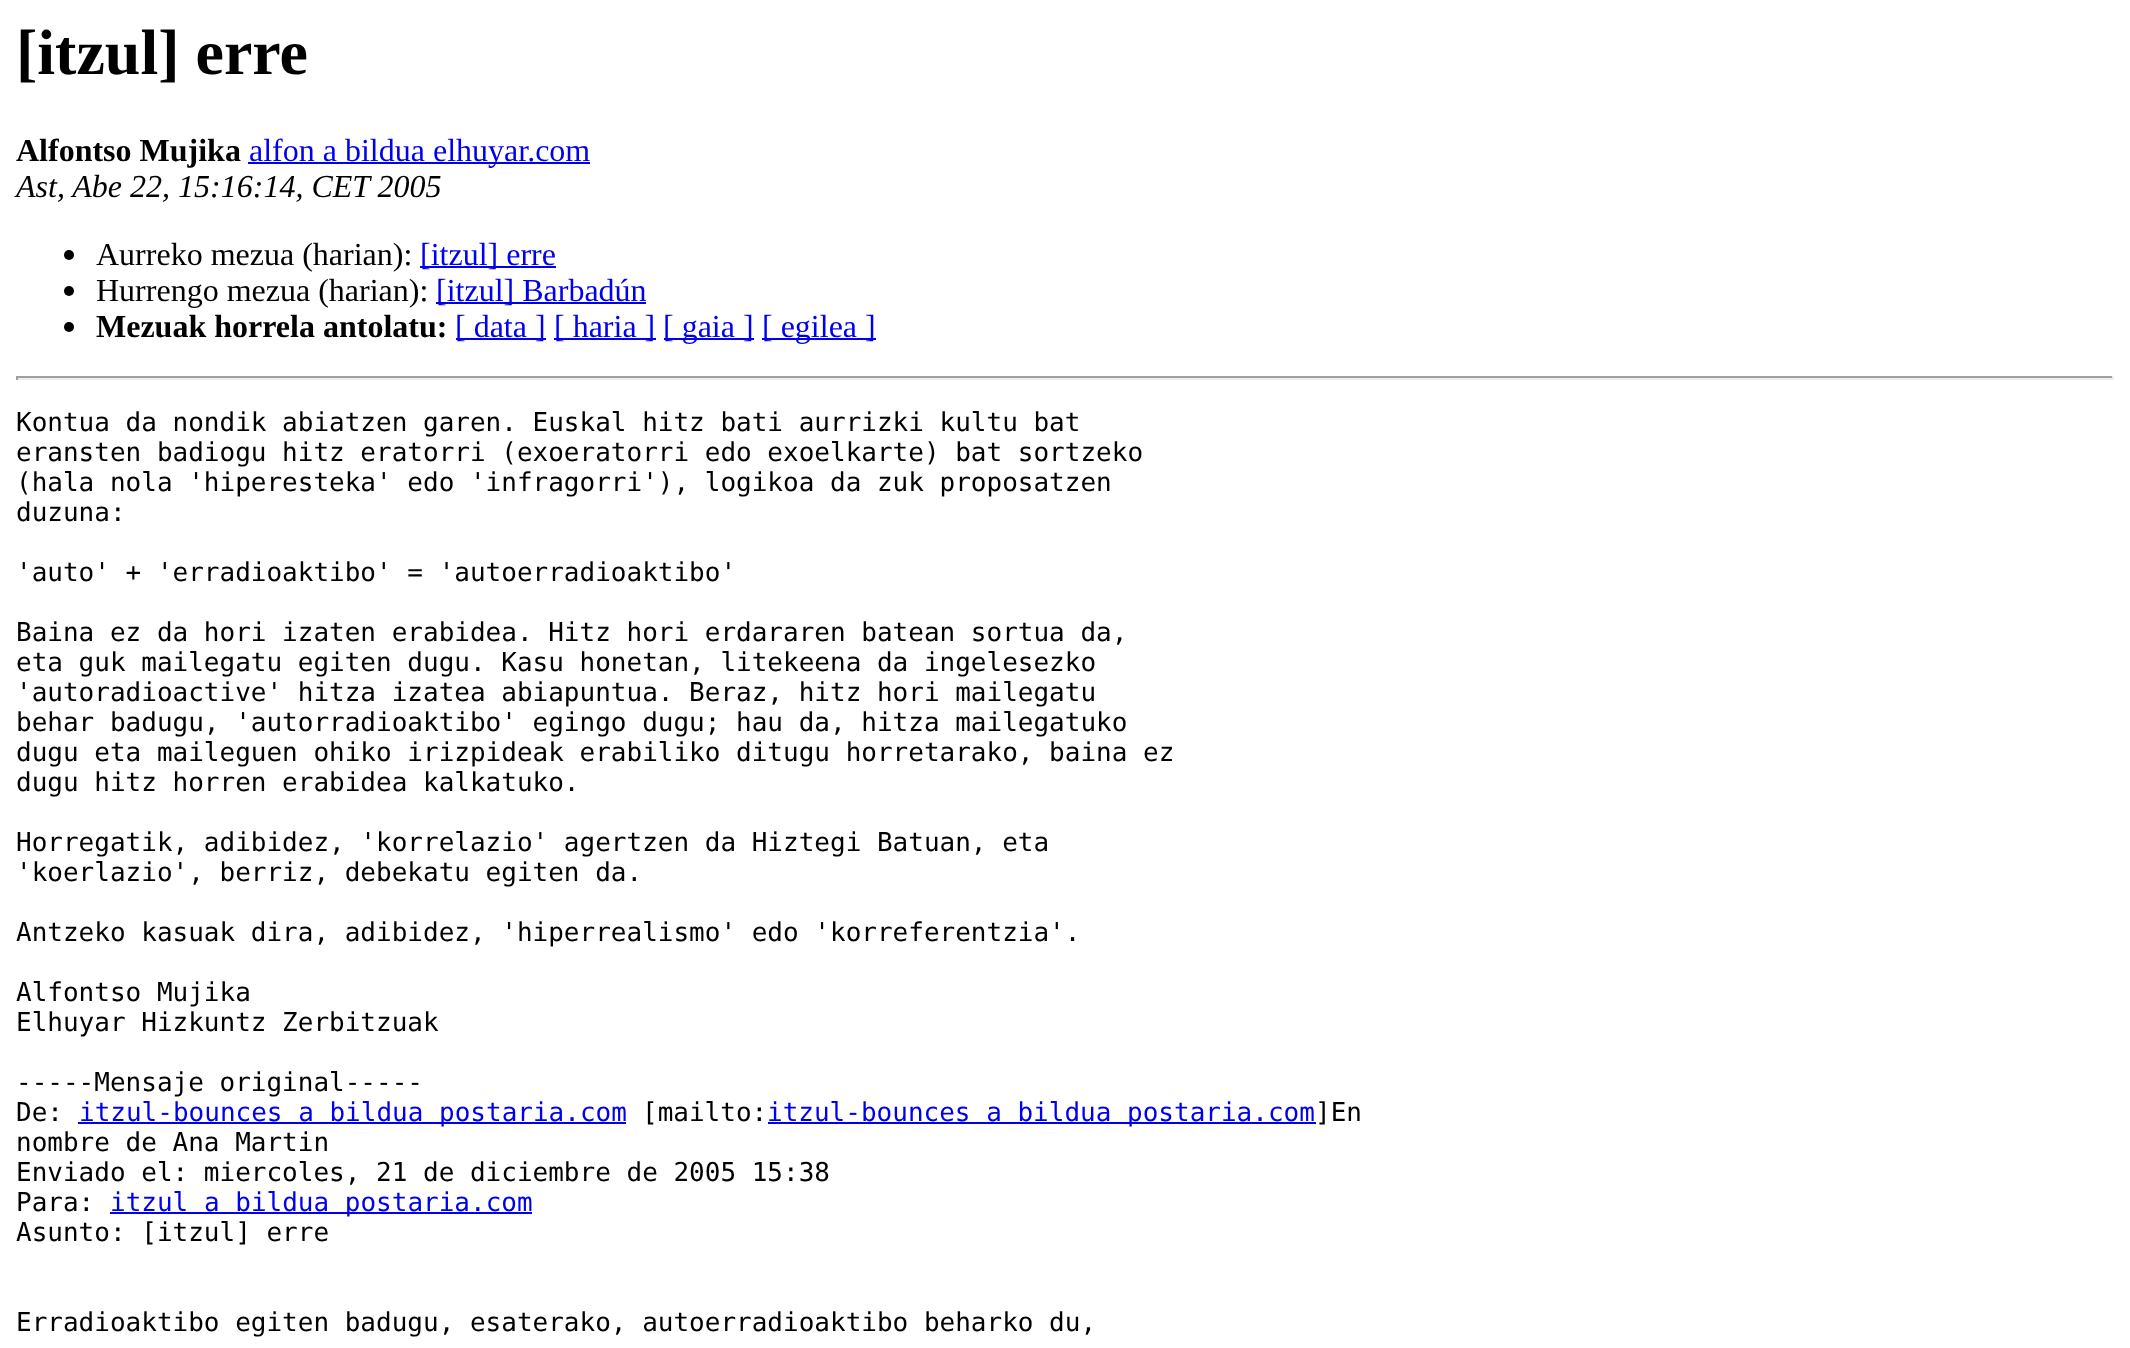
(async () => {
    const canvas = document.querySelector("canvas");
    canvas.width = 2130;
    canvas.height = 1348;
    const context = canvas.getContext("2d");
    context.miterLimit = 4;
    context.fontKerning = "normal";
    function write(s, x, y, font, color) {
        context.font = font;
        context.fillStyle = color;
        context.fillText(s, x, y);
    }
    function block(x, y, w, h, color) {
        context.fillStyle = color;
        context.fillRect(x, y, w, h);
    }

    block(0, 0, 2130, 1348, "rgb(255, 255, 255)");
    write("[itzul] erre", 16, 74, "bold 64px Liberation Serif", "rgb(0, 0, 0)");
    write("Alfontso Mujika", 16, 161, "bold 32px Liberation Serif", "rgb(0, 0, 0)");
    block(248, 162, 342, 2, "rgb(0, 0, 238)");
    write("alfon a bildua elhuyar.com", 249, 161, "32px Liberation Serif", "rgb(0, 0, 238)");
    write("Ast, Abe 22, 15:16:14, CET 2005", 16, 197, "italic 32px Liberation Serif", "rgb(0, 0, 0)");
    context.beginPath();
    context.arc(69, 255, 5, 0, Math.PI * 2);
    context.fill();
    write("Aurreko mezua (harian):", 96, 265, "32px Liberation Serif", "rgb(0, 0, 0)");
    block(420, 266, 136, 2, "rgb(0, 0, 238)");
    write("[itzul] erre", 420, 265, "32px Liberation Serif", "rgb(0, 0, 238)");
    context.fillStyle = "rgb(0, 0, 0)";
    context.beginPath();
    context.arc(69, 291, 5, 0, Math.PI * 2);
    context.fill();
    write("Hurrengo mezua (harian):", 96, 301, "32px Liberation Serif", "rgb(0, 0, 0)");
    block(436, 302, 210, 2, "rgb(0, 0, 238)");
    write("[itzul] Barbadún", 436, 301, "32px Liberation Serif", "rgb(0, 0, 238)");
    context.fillStyle = "rgb(0, 0, 0)";
    context.beginPath();
    context.arc(69, 327, 5, 0, Math.PI * 2);
    context.fill();
    write("Mezuak horrela antolatu:", 96, 337, "bold 32px Liberation Serif", "rgb(0, 0, 0)");
    block(456, 338, 90, 2, "rgb(0, 0, 238)");
    write("[ data ]", 455, 337, "32px Liberation Serif", "rgb(0, 0, 238)");
    block(554, 338, 102, 2, "rgb(0, 0, 238)");
    write("[ haria ]", 554, 337, "32px Liberation Serif", "rgb(0, 0, 238)");
    block(664, 338, 90, 2, "rgb(0, 0, 238)");
    write("[ gaia ]", 663, 337, "32px Liberation Serif", "rgb(0, 0, 238)");
    block(762, 338, 114, 2, "rgb(0, 0, 238)");
    write("[ egilea ]", 762, 337, "32px Liberation Serif", "rgb(0, 0, 238)");
    block(16, 376, 2098, 2, "rgb(159, 159, 159)");
    block(2112, 376, 2, 4, "rgb(238, 238, 238)");
    block(16, 378, 2098, 2, "rgb(238, 238, 238)");
    block(16, 376, 2, 4, "rgb(159, 159, 159)");
    write("Kontua da nondik abiatzen garen. Euskal hitz bati aurrizki kultu bat", 16, 431, "26px DejaVu Sans Mono", "rgb(0, 0, 0)");
    write("eransten badiogu hitz eratorri (exoeratorri edo exoelkarte) bat sortzeko", 16, 461, "26px DejaVu Sans Mono", "rgb(0, 0, 0)");
    write("(hala nola 'hiperesteka' edo 'infragorri'), logikoa da zuk proposatzen", 16, 491, "26px DejaVu Sans Mono", "rgb(0, 0, 0)");
    write("duzuna:", 16, 521, "26px DejaVu Sans Mono", "rgb(0, 0, 0)");
    write("'auto' + 'erradioaktibo' = 'autoerradioaktibo'", 16, 581, "26px DejaVu Sans Mono", "rgb(0, 0, 0)");
    write("Baina ez da hori izaten erabidea. Hitz hori erdararen batean sortua da,", 16, 641, "26px DejaVu Sans Mono", "rgb(0, 0, 0)");
    write("eta guk mailegatu egiten dugu. Kasu honetan, litekeena da ingelesezko", 16, 671, "26px DejaVu Sans Mono", "rgb(0, 0, 0)");
    write("'autoradioactive' hitza izatea abiapuntua. Beraz, hitz hori mailegatu", 16, 701, "26px DejaVu Sans Mono", "rgb(0, 0, 0)");
    write("behar badugu, 'autorradioaktibo' egingo dugu; hau da, hitza mailegatuko", 16, 731, "26px DejaVu Sans Mono", "rgb(0, 0, 0)");
    write("dugu eta maileguen ohiko irizpideak erabiliko ditugu horretarako, baina ez", 16, 761, "26px DejaVu Sans Mono", "rgb(0, 0, 0)");
    write("dugu hitz horren erabidea kalkatuko.", 16, 791, "26px DejaVu Sans Mono", "rgb(0, 0, 0)");
    write("Horregatik, adibidez, 'korrelazio' agertzen da Hiztegi Batuan, eta", 16, 851, "26px DejaVu Sans Mono", "rgb(0, 0, 0)");
    write("'koerlazio', berriz, debekatu egiten da.", 16, 881, "26px DejaVu Sans Mono", "rgb(0, 0, 0)");
    write("Antzeko kasuak dira, adibidez, 'hiperrealismo' edo 'korreferentzia'.", 16, 941, "26px DejaVu Sans Mono", "rgb(0, 0, 0)");
    write("Alfontso Mujika", 16, 1001, "26px DejaVu Sans Mono", "rgb(0, 0, 0)");
    write("Elhuyar Hizkuntz Zerbitzuak", 16, 1031, "26px DejaVu Sans Mono", "rgb(0, 0, 0)");
    write("-----Mensaje original-----", 16, 1091, "26px DejaVu Sans Mono", "rgb(0, 0, 0)");
    write("De:", 16, 1121, "26px DejaVu Sans Mono", "rgb(0, 0, 0)");
    block(78, 1122, 548, 2, "rgb(0, 0, 238)");
    write("itzul-bounces a bildua postaria.com", 79, 1121, "26px DejaVu Sans Mono", "rgb(0, 0, 238)");
    write("[mailto:", 642, 1121, "26px DejaVu Sans Mono", "rgb(0, 0, 0)");
    block(768, 1122, 548, 2, "rgb(0, 0, 238)");
    write("itzul-bounces a bildua postaria.com", 767, 1121, "26px DejaVu Sans Mono", "rgb(0, 0, 238)");
    write("]En", 1315, 1121, "26px DejaVu Sans Mono", "rgb(0, 0, 0)");
    write("nombre de Ana Martin", 16, 1151, "26px DejaVu Sans Mono", "rgb(0, 0, 0)");
    write("Enviado el: miercoles, 21 de diciembre de 2005 15:38", 16, 1181, "26px DejaVu Sans Mono", "rgb(0, 0, 0)");
    write("Para:", 16, 1211, "26px DejaVu Sans Mono", "rgb(0, 0, 0)");
    block(110, 1212, 422, 2, "rgb(0, 0, 238)");
    write("itzul a bildua postaria.com", 110, 1211, "26px DejaVu Sans Mono", "rgb(0, 0, 238)");
    write("Asunto: [itzul] erre", 16, 1241, "26px DejaVu Sans Mono", "rgb(0, 0, 0)");
    write("Erradioaktibo egiten badugu, esaterako, autoerradioaktibo beharko du,", 16, 1331, "26px DejaVu Sans Mono", "rgb(0, 0, 0)");
})();
